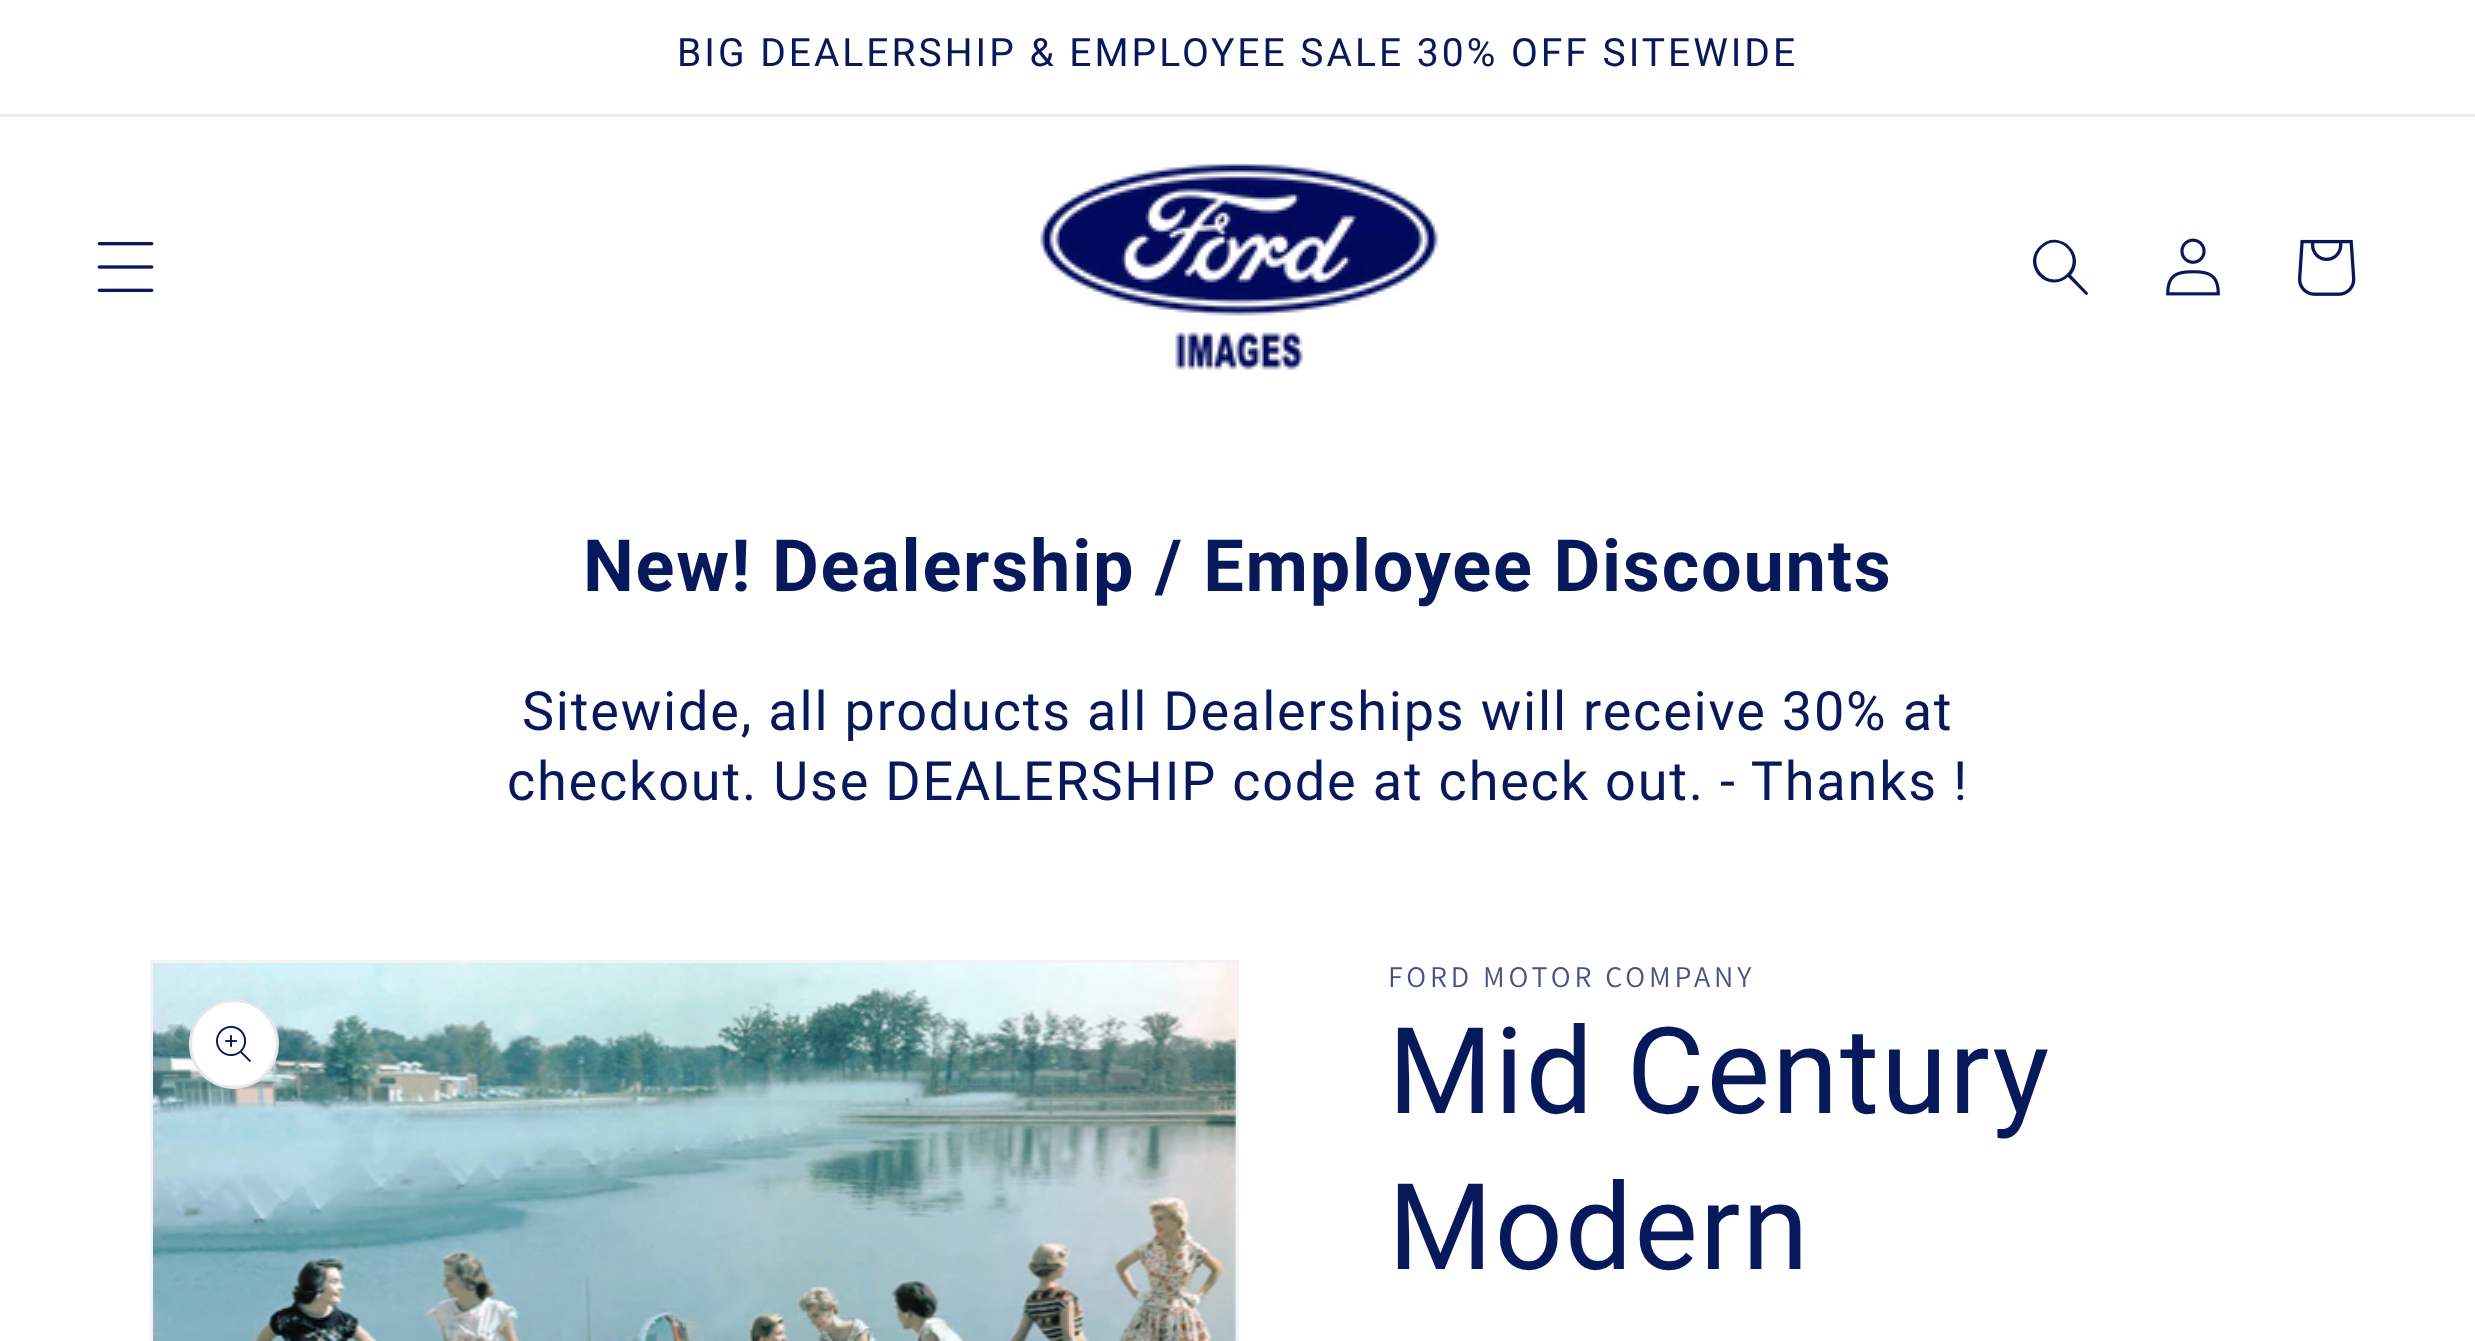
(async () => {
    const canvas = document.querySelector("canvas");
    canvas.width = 2475;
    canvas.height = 1341;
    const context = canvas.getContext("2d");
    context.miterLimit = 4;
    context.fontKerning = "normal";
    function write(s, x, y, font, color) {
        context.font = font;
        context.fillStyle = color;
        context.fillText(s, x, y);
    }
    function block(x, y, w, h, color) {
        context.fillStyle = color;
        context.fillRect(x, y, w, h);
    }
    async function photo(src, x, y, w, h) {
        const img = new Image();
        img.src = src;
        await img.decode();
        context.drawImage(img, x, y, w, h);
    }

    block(0, 0, 2475, 1341, "rgb(255, 255, 255)");
    block(0, 114, 2475, 3, "rgb(235, 237, 242)");
    context.letterSpacing = "3px";
    write("BIG DEALERSHIP & EMPLOYEE SALE 30% OFF SITEWIDE", 677, 66, "39px Roboto", "rgb(7, 24, 91)");
    await photo("media/1.png", 97, 242, 57, 50);
    await photo("media/2.png", 1040, 162, 398, 208);
    context.beginPath();
    context.moveTo(2067, 274);
    context.bezierCurveTo(2050, 291, 2025, 265, 2042, 248);
    context.bezierCurveTo(2059, 231, 2084, 257, 2067, 274);
    context.moveTo(2068, 277);
    context.bezierCurveTo(2047, 295, 2020, 265, 2040, 246);
    context.bezierCurveTo(2059, 227, 2088, 255, 2071, 275);
    context.lineTo(2088, 293);
    context.bezierCurveTo(2088, 295, 2086, 296, 2085, 294);
    context.closePath();
    context.fill("evenodd");
    await photo("media/3.png", 2166, 238, 54, 58);
    await photo("media/4.png", 2298, 239, 58, 57);
    context.letterSpacing = "1.8px";
    write("New! Dealership / Employee Discounts", 583, 591, "bold 72px Roboto", "rgb(7, 24, 91)");
    write("Sitewide, all products all Dealerships will receive 30% at", 522, 730, "54px Roboto", "rgb(7, 24, 91)");
    write("checkout. Use DEALERSHIP code at check out. - Thanks !", 507, 800, "54px Roboto", "rgb(7, 24, 91)");
    context.strokeStyle = "rgb(243, 243, 247)";
    context.lineWidth = 3;
    context.strokeRect(151.5, 961.5, 1086, 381);
    await photo("media/5.png", 153, 963, 1083, 378);
    context.fillStyle = "rgb(255, 255, 255)";
    context.beginPath();
    context.arc(234, 1044, 45, 0, Math.PI * 2);
    context.fill();
    context.beginPath();
    context.arc(234, 1044, 43.5, 0, Math.PI * 2);
    context.strokeStyle = "rgba(7, 24, 91, 0.1)";
    context.stroke();
    await photo("media/6.png", 216, 1025, 35, 37);
    context.letterSpacing = "3.9px";
    write("FORD MOTOR COMPANY", 1388, 987, "30px Assistant", "rgb(69, 82, 132)");
    context.letterSpacing = "1.8px";
    write("Mid Century", 1388, 1113, "120px Roboto", "rgb(7, 24, 91)");
    write("Modern", 1388, 1269, "120px Roboto", "rgb(7, 24, 91)");
})();
